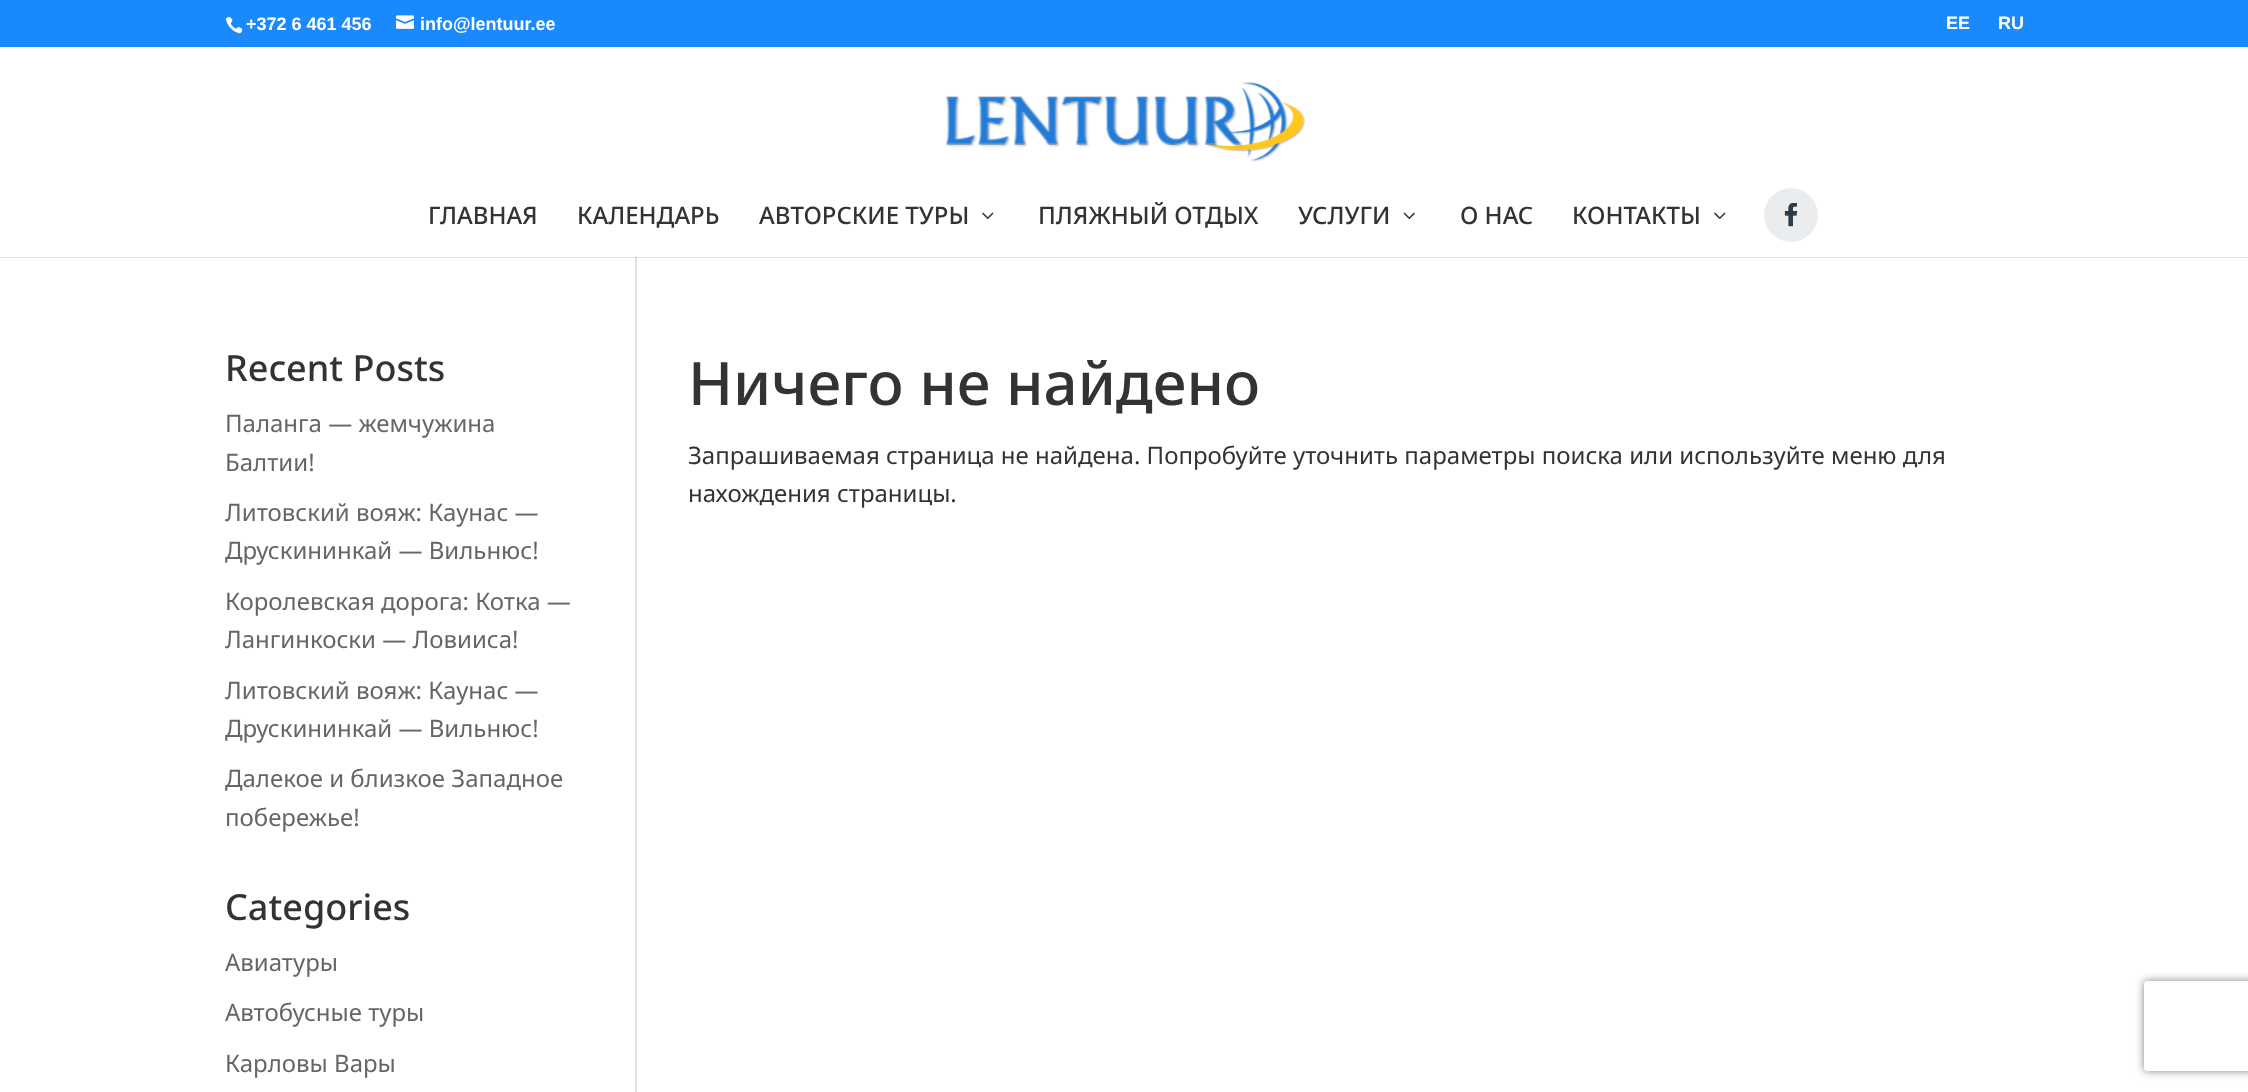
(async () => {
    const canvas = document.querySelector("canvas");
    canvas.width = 2248;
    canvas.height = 1092;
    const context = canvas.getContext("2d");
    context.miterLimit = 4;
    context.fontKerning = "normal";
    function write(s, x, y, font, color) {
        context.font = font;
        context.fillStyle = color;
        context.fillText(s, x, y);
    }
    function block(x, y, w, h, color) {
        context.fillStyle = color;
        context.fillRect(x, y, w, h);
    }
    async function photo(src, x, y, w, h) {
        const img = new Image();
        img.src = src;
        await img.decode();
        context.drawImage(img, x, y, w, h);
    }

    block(0, 0, 2248, 1092, "rgb(255, 255, 255)");
    block(0, 0, 2248, 47, "rgb(25, 137, 252)");
    await photo("media/1.png", 225, 16, 18, 18);
    write("+372 6 461 456", 246, 30, "bold 18px Liberation Sans", "rgb(255, 255, 255)");
    await photo("media/2.png", 396, 15, 18, 14);
    write("info@lentuur.ee", 420, 30, "bold 18px Liberation Sans", "rgb(255, 255, 255)");
    write("EE", 1946, 29, "bold 18px Liberation Sans", "rgb(255, 255, 255)");
    write("RU", 1998, 29, "bold 18px Liberation Sans", "rgb(255, 255, 255)");
    block(635, 257, 2, 835, "rgb(226, 226, 226)");
    context.fillStyle = "rgba(0, 0, 0, 0.1)";
    context.beginPath();
    context.moveTo(0, 256);
    context.lineTo(0, 258);
    context.lineTo(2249, 258);
    context.lineTo(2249, 48);
    context.lineTo(2248, 48);
    context.lineTo(2248, 256);
    context.closePath();
    context.fill();
    block(0, 256, 2248, 1, "rgb(255, 255, 255)");
    await photo("media/3.png", 946, 82, 359, 80);
    write("ГЛАВНАЯ", 428, 224, "500 24px Noto Sans", "rgb(51, 51, 51)");
    write("КАЛЕНДАРЬ", 577, 224, "500 24px Noto Sans", "rgb(51, 51, 51)");
    write("АВТОРСКИЕ ТУРЫ", 759, 224, "500 24px Noto Sans", "rgb(51, 51, 51)");
    await photo("media/4.png", 982, 212, 12, 7);
    write("ПЛЯЖНЫЙ ОТДЫХ", 1038, 224, "500 24px Noto Sans", "rgb(51, 51, 51)");
    write("УСЛУГИ", 1298, 224, "500 24px Noto Sans", "rgb(51, 51, 51)");
    await photo("media/5.png", 1403, 212, 12, 7);
    write("О НАС", 1460, 224, "500 24px Noto Sans", "rgb(51, 51, 51)");
    write("КОНТАКТЫ", 1572, 224, "500 24px Noto Sans", "rgb(51, 51, 51)");
    await photo("media/4.png", 1714, 212, 12, 7);
    context.fillStyle = "rgb(234, 236, 237)";
    context.beginPath();
    context.arc(1791, 215, 27, 0, Math.PI * 2);
    context.fill();
    await photo("media/6.png", 1784, 203, 14, 24);
    write("Recent Posts", 225, 381, "500 36px Noto Sans", "rgb(51, 51, 51)");
    write("Паланга — жемчужина", 225, 432, "24px Noto Sans", "rgb(102, 102, 102)");
    write("Балтии!", 225, 471, "24px Noto Sans", "rgb(102, 102, 102)");
    write("Литовский вояж: Каунас —", 225, 521, "24px Noto Sans", "rgb(102, 102, 102)");
    write("Друскининкай — Вильнюс!", 225, 559, "24px Noto Sans", "rgb(102, 102, 102)");
    write("Королевская дорога: Котка —", 225, 610, "24px Noto Sans", "rgb(102, 102, 102)");
    write("Лангинкоски — Ловииса!", 225, 648, "24px Noto Sans", "rgb(102, 102, 102)");
    write("Литовский вояж: Каунас —", 225, 699, "24px Noto Sans", "rgb(102, 102, 102)");
    write("Друскининкай — Вильнюс!", 225, 737, "24px Noto Sans", "rgb(102, 102, 102)");
    write("Далекое и близкое Западное", 225, 787, "24px Noto Sans", "rgb(102, 102, 102)");
    write("побережье!", 225, 826, "24px Noto Sans", "rgb(102, 102, 102)");
    write("Categories", 225, 920, "500 36px Noto Sans", "rgb(51, 51, 51)");
    write("Авиатуры", 225, 971, "24px Noto Sans", "rgb(102, 102, 102)");
    write("Автобусные туры", 225, 1021, "24px Noto Sans", "rgb(102, 102, 102)");
    write("Карловы Вары", 225, 1072, "24px Noto Sans", "rgb(102, 102, 102)");
    write("Ничего не найдено", 688, 405, "500 60px Noto Sans", "rgb(51, 51, 51)");
    write("Запрашиваемая страница не найдена. Попробуйте уточнить параметры поиска или используйте меню для", 688, 464, "24px Noto Sans", "rgb(51, 51, 51)");
    write("нахождения страницы.", 688, 502, "24px Noto Sans", "rgb(51, 51, 51)");
    context.save();
    context.beginPath();
    context.moveTo(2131, 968);
    context.lineTo(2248, 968);
    context.lineTo(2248, 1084);
    context.lineTo(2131, 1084);
    context.closePath();
    context.moveTo(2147, 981);
    context.lineTo(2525, 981);
    context.bezierCurveTo(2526.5, 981, 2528, 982.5, 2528, 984);
    context.lineTo(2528, 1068);
    context.bezierCurveTo(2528, 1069.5, 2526.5, 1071, 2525, 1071);
    context.lineTo(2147, 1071);
    context.bezierCurveTo(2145.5, 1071, 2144, 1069.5, 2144, 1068);
    context.lineTo(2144, 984);
    context.bezierCurveTo(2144, 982.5, 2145.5, 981, 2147, 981);
    context.closePath();
    context.clip("evenodd");
    context.fillStyle = "rgb(128, 128, 128)";
    context.filter = "blur(4px)";
    context.beginPath();
    context.roundRect(2144, 981, 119, 90, 3);
    context.fill();
    context.filter = "none";
    context.restore();
})();
